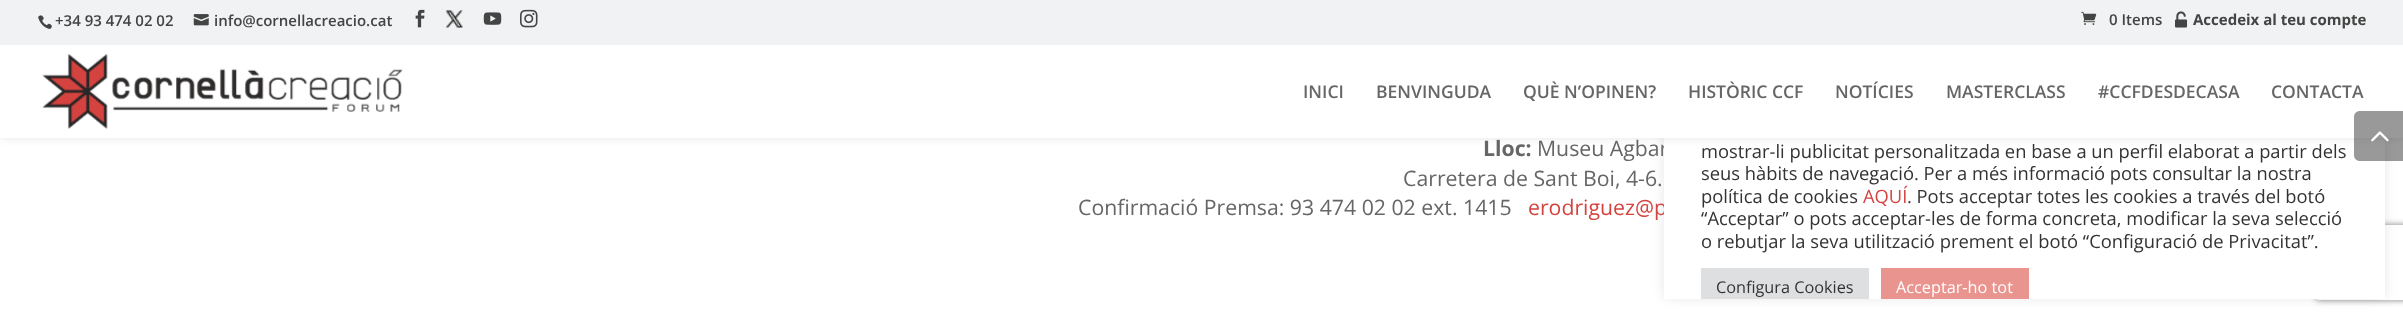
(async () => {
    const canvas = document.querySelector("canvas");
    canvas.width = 2403;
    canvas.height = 317;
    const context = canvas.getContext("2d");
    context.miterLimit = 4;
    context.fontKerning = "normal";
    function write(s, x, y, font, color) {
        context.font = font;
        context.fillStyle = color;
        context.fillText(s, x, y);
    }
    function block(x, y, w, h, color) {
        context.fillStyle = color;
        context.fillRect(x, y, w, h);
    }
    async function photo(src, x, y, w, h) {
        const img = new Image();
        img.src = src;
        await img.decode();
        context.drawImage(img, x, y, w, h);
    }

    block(0, 0, 2403, 317, "rgb(255, 255, 255)");
    write("Museu Agbar", 1537, 156, "21.25px Open Sans", "rgb(102, 102, 102)");
    write("erodriguez@p", 1528, 215, "21.25px Open Sans", "rgb(212, 67, 63)");
    context.fillStyle = "rgba(172, 171, 171, 0.3)";
    context.filter = "blur(6px)";
    context.beginPath();
    context.rect(1664, 30, 721, 268);
    context.fill();
    context.filter = "none";
    context.save();
    context.beginPath();
    context.moveTo(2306, 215);
    context.lineTo(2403, 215);
    context.lineTo(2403, 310);
    context.lineTo(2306, 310);
    context.closePath();
    context.moveTo(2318.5, 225);
    context.lineTo(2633.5, 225);
    context.bezierCurveTo(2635, 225, 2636, 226, 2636, 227.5);
    context.lineTo(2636, 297.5);
    context.bezierCurveTo(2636, 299, 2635, 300, 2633.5, 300);
    context.lineTo(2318.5, 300);
    context.bezierCurveTo(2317, 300, 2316, 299, 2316, 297.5);
    context.lineTo(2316, 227.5);
    context.bezierCurveTo(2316, 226, 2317, 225, 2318.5, 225);
    context.closePath();
    context.clip("evenodd");
    context.fillStyle = "rgb(128, 128, 128)";
    context.filter = "blur(3px)";
    context.beginPath();
    context.roundRect(2316, 225, 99, 75, 2.5);
    context.fill();
    context.filter = "none";
    context.restore();
    block(1664, 138, 721, 161, "rgb(255, 255, 255)");
    context.fillStyle = "rgba(0, 0, 0, 0.1)";
    context.filter = "blur(4.5px)";
    context.beginPath();
    context.rect(0, 45, 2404, 93);
    context.fill();
    context.filter = "none";
    block(0, 0, 2403, 45, "rgb(241, 242, 243)");
    await photo("media/1.png", 38, 15, 14, 14);
    write("+34 93 474 02 02", 55, 26, "600 15px Open Sans", "rgb(67, 68, 68)");
    await photo("media/2.png", 193, 14, 16, 12);
    write("info@cornellacreacio.cat", 214, 26, "600 15px Open Sans", "rgb(67, 68, 68)");
    await photo("media/3.png", 415, 9, 10, 19);
    await photo("media/4.png", 446, 10, 17, 18);
    await photo("media/5.png", 483, 12, 19, 13);
    await photo("media/6.png", 520, 9, 18, 19);
    await photo("media/7.png", 2081, 11, 16, 14);
    write("0 Items", 2109, 25, "600 15px Open Sans", "rgb(67, 68, 68)");
    await photo("media/8.png", 2175, 11, 13, 17);
    write("Accedeix al teu compte", 2193, 25, "bold 15px Open Sans", "rgb(67, 68, 68)");
    block(0, 45, 2403, 93, "rgb(255, 255, 255)");
    await photo("media/9.png", 42, 53, 361, 76);
    write("INICI", 1303, 98, "600 17.5px Open Sans", "rgb(102, 102, 102)");
    write("BENVINGUDA", 1376, 98, "600 17.5px Open Sans", "rgb(102, 102, 102)");
    write("QUÈ N’OPINEN?", 1523, 98, "600 17.5px Open Sans", "rgb(102, 102, 102)");
    write("HISTÒRIC CCF", 1688, 98, "600 17.5px Open Sans", "rgb(102, 102, 102)");
    write("NOTÍCIES", 1835, 98, "600 17.5px Open Sans", "rgb(102, 102, 102)");
    write("MASTERCLASS", 1946, 98, "600 17.5px Open Sans", "rgb(102, 102, 102)");
    write("#CCFDESDECASA", 2098, 98, "600 17.5px Open Sans", "rgb(102, 102, 102)");
    write("CONTACTA", 2271, 98, "600 17.5px Open Sans", "rgb(102, 102, 102)");
    write("Lloc:", 1483, 156, "bold 21.25px Open Sans", "rgb(102, 102, 102)");
    write("Carretera de Sant Boi, 4-6.", 1403, 186, "21.25px Open Sans", "rgb(102, 102, 102)");
    write("Confirmació Premsa: 93 474 02 02 ext. 1415", 1078, 215, "21.25px Open Sans", "rgb(102, 102, 102)");
    context.fillStyle = "rgba(0, 0, 0, 0.4)";
    context.beginPath();
    context.moveTo(2360, 111);
    context.lineTo(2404, 111);
    context.lineTo(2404, 161);
    context.lineTo(2360, 161);
    context.bezierCurveTo(2356.5, 161, 2354, 158.5, 2354, 155);
    context.lineTo(2354, 117);
    context.bezierCurveTo(2354, 113.5, 2356.5, 111, 2360, 111);
    context.closePath();
    context.fill();
    await photo("media/10.png", 2371, 131, 18, 11);
    write("mostrar-li publicitat personalitzada en base a un perfil elaborat a partir dels", 1701, 158, "18.35px Open Sans", "rgb(51, 51, 51)");
    write("seus hàbits de navegació. Per a més informació pots consultar la nostra", 1701, 180, "18.35px Open Sans", "rgb(51, 51, 51)");
    write("política de cookies", 1701, 203, "18.35px Open Sans", "rgb(51, 51, 51)");
    write("AQUÍ", 1863, 203, "18.35px Open Sans", "rgb(212, 67, 63)");
    write(". Pots acceptar totes les cookies a través del botó", 1907, 203, "18.35px Open Sans", "rgb(51, 51, 51)");
    write("“Acceptar” o pots acceptar-les de forma concreta, modificar la seva selecció", 1701, 225, "18.35px Open Sans", "rgb(51, 51, 51)");
    write("o rebutjar la seva utilització prement el botó “Configuració de Privacitat”.", 1701, 248, "18.35px Open Sans", "rgb(51, 51, 51)");
    block(1701, 268, 168, 31, "rgb(222, 223, 224)");
    write("Configura Cookies", 1716, 293, "16.25px Open Sans", "rgb(51, 51, 51)");
    block(1881, 268, 148, 31, "rgb(234, 148, 143)");
    write("Acceptar-ho tot", 1896, 293, "16.25px Open Sans", "rgb(255, 255, 255)");
})();
